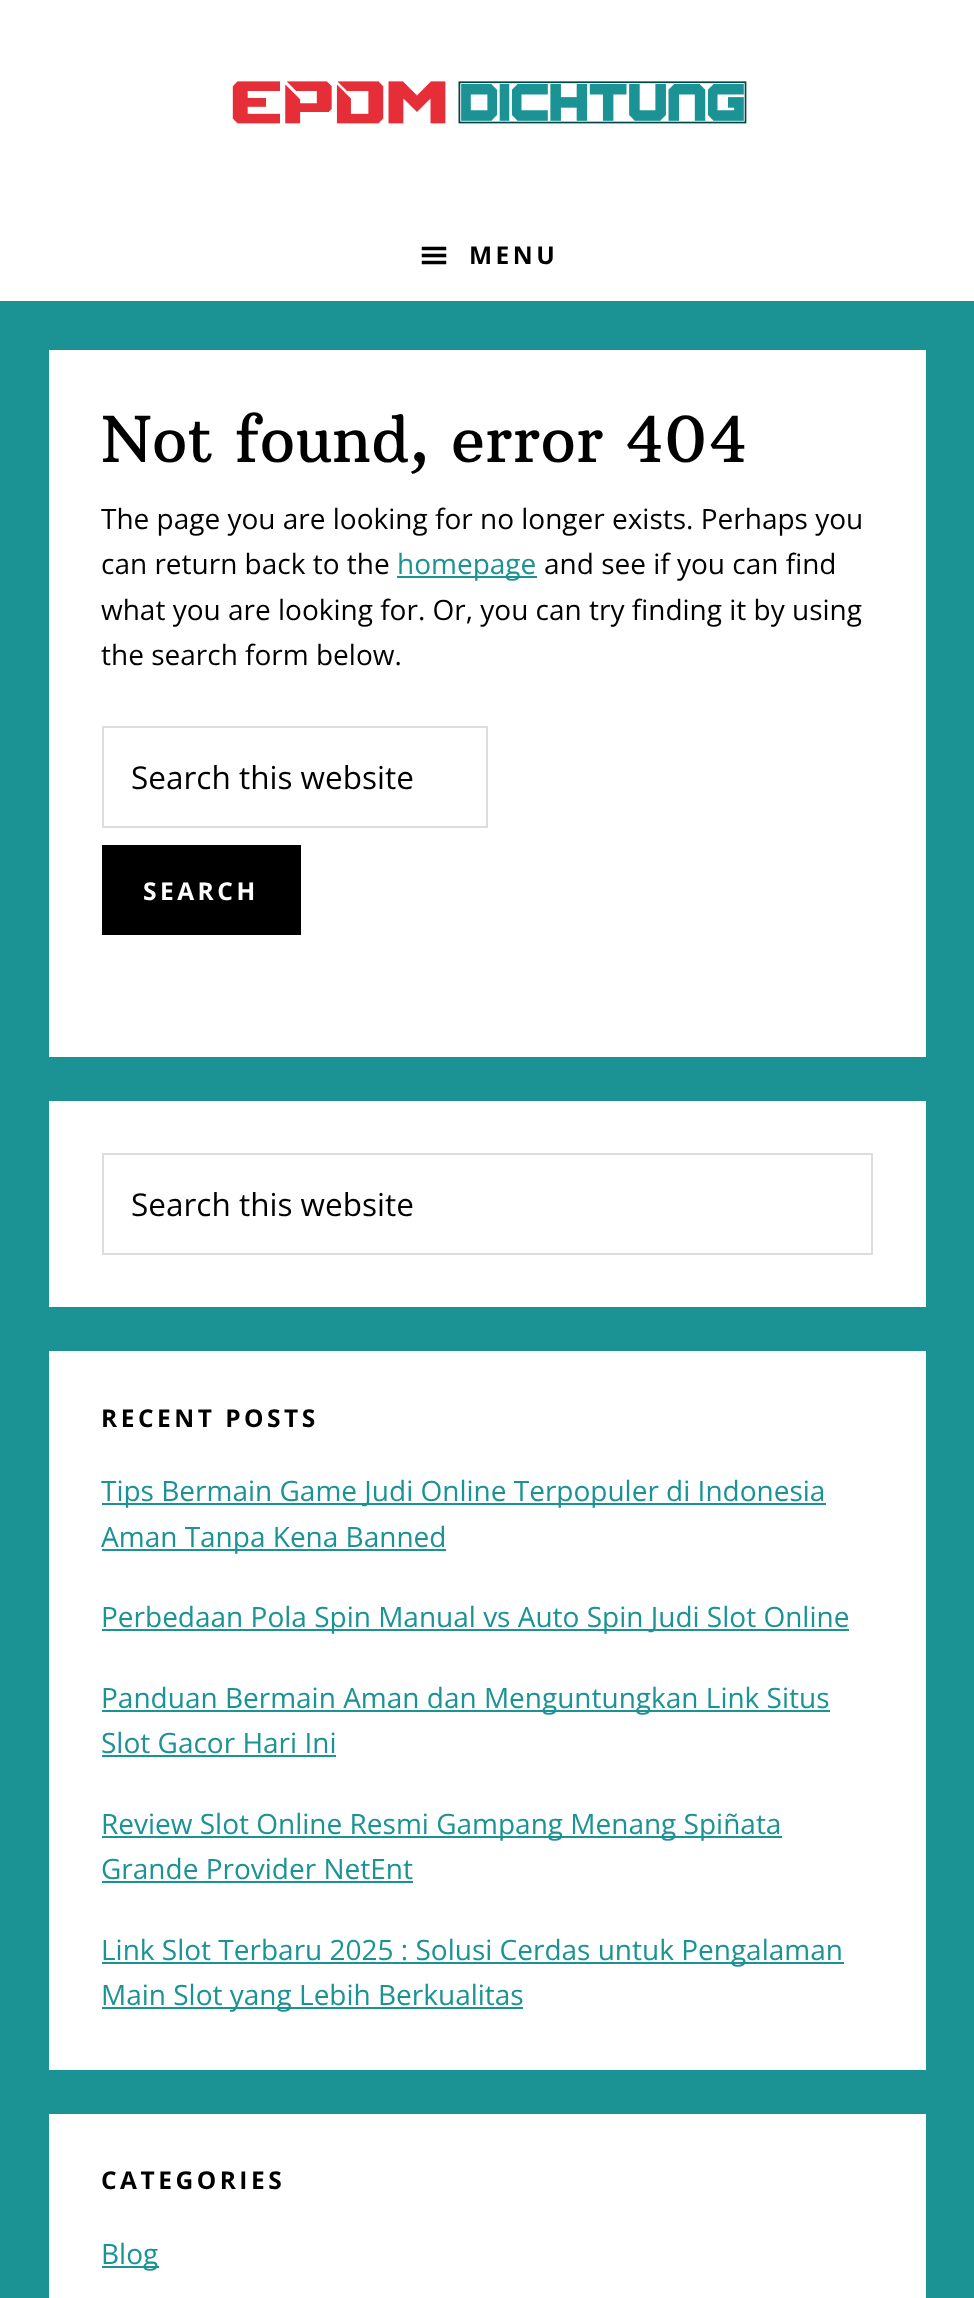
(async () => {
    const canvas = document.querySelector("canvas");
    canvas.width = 974;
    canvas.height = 2298;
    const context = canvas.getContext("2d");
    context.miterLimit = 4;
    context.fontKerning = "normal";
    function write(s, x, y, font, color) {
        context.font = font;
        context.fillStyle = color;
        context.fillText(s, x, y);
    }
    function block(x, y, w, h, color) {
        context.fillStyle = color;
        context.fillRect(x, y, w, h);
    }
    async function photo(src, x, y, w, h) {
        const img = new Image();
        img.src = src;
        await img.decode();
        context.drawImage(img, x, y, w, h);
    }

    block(0, 0, 974, 2298, "rgb(27, 146, 148)");
    block(0, 0, 974, 301, "rgb(255, 255, 255)");
    await photo("media/1.png", 232, 81, 515, 43);
    await photo("media/2.png", 421, 246, 26, 19);
    context.letterSpacing = "3.5px";
    write("MENU", 469, 264, "bold 24.5px Open Sans", "rgb(0, 0, 0)");
    block(49, 350, 877, 707, "rgb(255, 255, 255)");
    context.letterSpacing = "0px";
    write("Not found, error 404", 101, 462, "63px Arbutus Slab", "rgb(0, 0, 0)");
    write("The page you are looking for no longer exists. Perhaps you", 101, 529, "28px Open Sans", "rgb(0, 0, 0)");
    write("can return back to the", 101, 574, "28px Open Sans", "rgb(0, 0, 0)");
    block(397, 576, 140, 2, "rgb(27, 146, 148)");
    write("homepage", 397, 574, "28px Open Sans", "rgb(27, 146, 148)");
    write("and see if you can find", 544, 574, "28px Open Sans", "rgb(0, 0, 0)");
    write("what you are looking for. Or, you can try finding it by using", 101, 620, "28px Open Sans", "rgb(0, 0, 0)");
    write("the search form below.", 101, 665, "28px Open Sans", "rgb(0, 0, 0)");
    context.strokeStyle = "rgb(221, 221, 221)";
    context.lineWidth = 2;
    context.strokeRect(103, 727, 384, 100);
    write("Search this website", 131, 789, "31.5px Open Sans", "rgb(0, 0, 0)");
    block(102, 845, 199, 90, "rgb(0, 0, 0)");
    context.letterSpacing = "3.5px";
    write("SEARCH", 143, 900, "bold 24.5px Open Sans", "rgb(255, 255, 255)");
    block(49, 1101, 877, 206, "rgb(255, 255, 255)");
    context.strokeRect(103, 1154, 769, 100);
    context.letterSpacing = "0px";
    write("Search this website", 131, 1216, "31.5px Open Sans", "rgb(0, 0, 0)");
    block(49, 1351, 877, 719, "rgb(255, 255, 255)");
    context.letterSpacing = "3.5px";
    write("RECENT POSTS", 101, 1427, "bold 24.5px Open Sans", "rgb(0, 0, 0)");
    block(102, 1503, 724, 2, "rgb(27, 146, 148)");
    context.letterSpacing = "0px";
    write("Tips Bermain Game Judi Online Terpopuler di Indonesia", 101, 1501, "28px Open Sans", "rgb(27, 146, 148)");
    block(102, 1549, 344, 2, "rgb(27, 146, 148)");
    write("Aman Tanpa Kena Banned", 101, 1547, "28px Open Sans", "rgb(27, 146, 148)");
    block(102, 1629, 747, 2, "rgb(27, 146, 148)");
    write("Perbedaan Pola Spin Manual vs Auto Spin Judi Slot Online", 101, 1627, "28px Open Sans", "rgb(27, 146, 148)");
    block(102, 1710, 728, 2, "rgb(27, 146, 148)");
    write("Panduan Bermain Aman dan Menguntungkan Link Situs", 101, 1708, "28px Open Sans", "rgb(27, 146, 148)");
    write("Slot Gacor Hari Ini", 101, 1753, "28px Open Sans", "rgb(27, 146, 148)");
    block(102, 1755, 234, 2, "rgb(27, 146, 148)");
    block(102, 1836, 680, 2, "rgb(27, 146, 148)");
    write("Review Slot Online Resmi Gampang Menang Spiñata", 101, 1834, "28px Open Sans", "rgb(27, 146, 148)");
    write("Grande Provider NetEnt", 101, 1879, "28px Open Sans", "rgb(27, 146, 148)");
    block(102, 1881, 311, 2, "rgb(27, 146, 148)");
    block(102, 1962, 742, 2, "rgb(27, 146, 148)");
    write("Link Slot Terbaru 2025 : Solusi Cerdas untuk Pengalaman", 101, 1960, "28px Open Sans", "rgb(27, 146, 148)");
    block(102, 2007, 421, 2, "rgb(27, 146, 148)");
    write("Main Slot yang Lebih Berkualitas", 101, 2005, "28px Open Sans", "rgb(27, 146, 148)");
    block(49, 2114, 877, 184, "rgb(255, 255, 255)");
    context.letterSpacing = "3.5px";
    write("CATEGORIES", 101, 2189, "bold 24.5px Open Sans", "rgb(0, 0, 0)");
    block(102, 2266, 57, 2, "rgb(27, 146, 148)");
    context.letterSpacing = "0px";
    write("Blog", 101, 2264, "28px Open Sans", "rgb(27, 146, 148)");
})();
